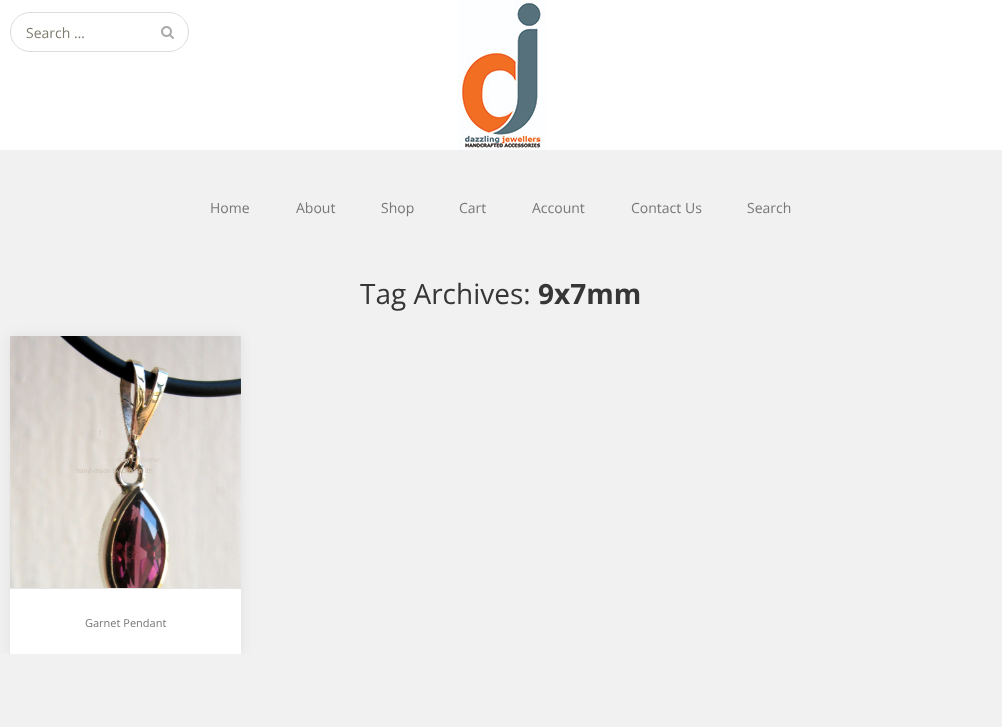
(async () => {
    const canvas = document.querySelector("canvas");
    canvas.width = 1002;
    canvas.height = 727;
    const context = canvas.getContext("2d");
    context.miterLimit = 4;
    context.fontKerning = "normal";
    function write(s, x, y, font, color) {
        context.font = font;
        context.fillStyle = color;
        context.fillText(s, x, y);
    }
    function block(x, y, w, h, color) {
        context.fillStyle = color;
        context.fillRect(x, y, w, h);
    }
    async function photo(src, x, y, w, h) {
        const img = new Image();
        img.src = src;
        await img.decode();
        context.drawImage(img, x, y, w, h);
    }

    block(0, 0, 1002, 727, "rgb(255, 255, 255)");
    context.beginPath();
    context.roundRect(10.5, 12.5, 178, 39, 19.5);
    context.strokeStyle = "rgb(221, 221, 221)";
    context.stroke();
    write("Search …", 26, 38, "14px Open Sans", "rgb(125, 123, 109)");
    await photo("media/1.png", 161, 26, 13, 13);
    await photo("media/2.png", 458, 0, 88, 150);
    block(0, 150, 1002, 577, "rgb(241, 241, 241)");
    write("Home", 210, 213, "14px Open Sans", "rgb(119, 119, 119)");
    write("About", 296, 213, "14px Open Sans", "rgb(119, 119, 119)");
    write("Shop", 381, 213, "14px Open Sans", "rgb(119, 119, 119)");
    write("Cart", 459, 213, "14px Open Sans", "rgb(119, 119, 119)");
    write("Account", 532, 213, "14px Open Sans", "rgb(119, 119, 119)");
    write("Contact Us", 631, 213, "14px Open Sans", "rgb(119, 119, 119)");
    write("Search", 747, 213, "14px Open Sans", "rgb(119, 119, 119)");
    write("Tag Archives:", 360, 304, "28px Open Sans", "rgb(54, 54, 54)");
    write("9x7mm", 538, 304, "bold 28px Open Sans", "rgb(54, 54, 54)");
    context.save();
    context.beginPath();
    context.rect(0, 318, 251, 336);
    context.clip();
    context.fillStyle = "rgba(0, 0, 0, 0.07)";
    context.filter = "blur(6.5px)";
    context.beginPath();
    context.rect(10, 336, 231, 320);
    context.fill();
    context.filter = "none";
    context.restore();
    await photo("media/3.png", 10, 336, 231, 252);
    write("t", 99, 435, "8px Open Sans", "rgb(208, 200, 190)");
    write("nt", 127, 435, "8px Open Sans", "rgb(208, 200, 190)");
    write("d by C", 117, 462, "6.5px Open Sans", "rgb(208, 200, 190)");
    write("tomer,", 142, 462, "6.5px Open Sans", "rgb(208, 200, 190)");
    write("hand-made by Goldsmith", 76, 473, "6.5px Open Sans", "rgb(203, 193, 182)");
    write("…", 117, 485, "6.5px Open Sans", "rgb(223, 216, 208)");
    block(10, 589, 231, 65, "rgb(255, 255, 255)");
    block(10, 588, 231, 1, "rgb(229, 229, 229)");
    write("Garnet Pendant", 85, 627, "11px Open Sans", "rgb(119, 119, 119)");
})();
